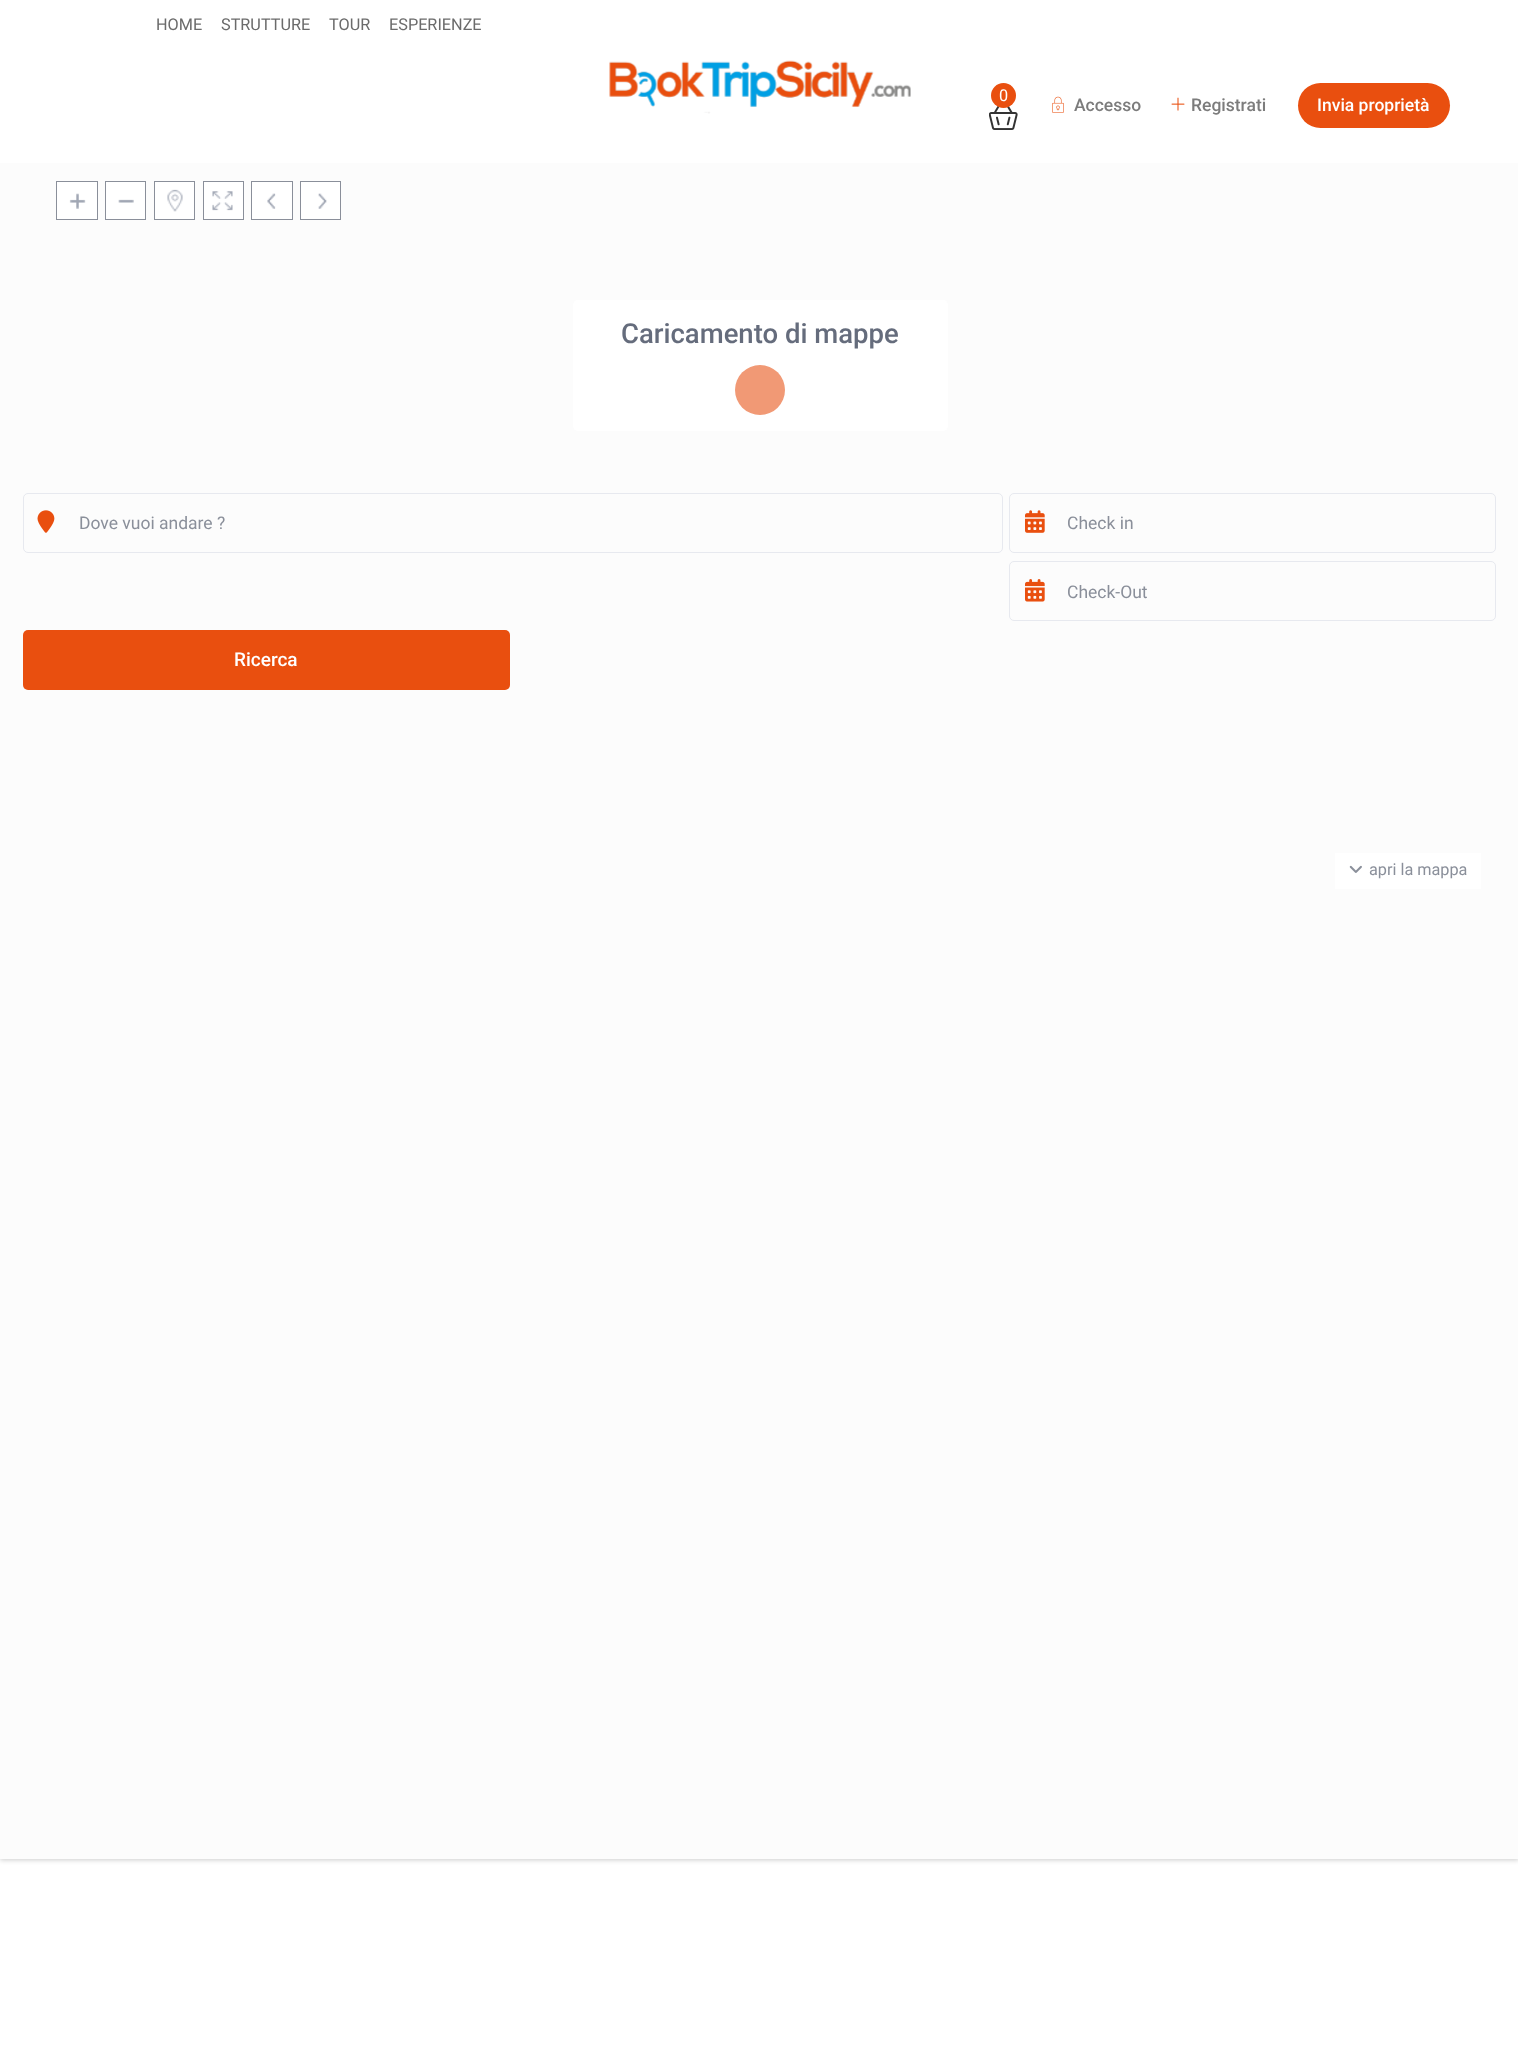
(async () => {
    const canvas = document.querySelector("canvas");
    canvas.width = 1518;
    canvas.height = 2047;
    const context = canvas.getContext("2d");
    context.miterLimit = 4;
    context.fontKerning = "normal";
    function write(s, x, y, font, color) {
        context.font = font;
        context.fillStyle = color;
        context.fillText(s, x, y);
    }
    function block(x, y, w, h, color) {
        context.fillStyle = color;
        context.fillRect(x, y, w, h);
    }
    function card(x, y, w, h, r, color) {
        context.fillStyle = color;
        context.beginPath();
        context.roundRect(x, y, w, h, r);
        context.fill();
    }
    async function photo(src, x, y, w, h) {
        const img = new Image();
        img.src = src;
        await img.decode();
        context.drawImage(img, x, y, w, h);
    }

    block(0, 0, 1518, 2047, "rgb(255, 255, 255)");
    context.fillStyle = "rgba(0, 0, 0, 0.2)";
    context.filter = "blur(2.5px)";
    context.beginPath();
    context.rect(0, 1, 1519, 1859);
    context.fill();
    context.filter = "none";
    block(0, 163, 1518, 1696, "rgb(252, 252, 252)");
    block(0, 0, 1518, 163, "rgb(255, 255, 255)");
    write("HOME", 156, 30, "16.25px Roboto", "rgb(107, 107, 107)");
    write("STRUTTURE", 221, 30, "16.25px Roboto", "rgb(107, 107, 107)");
    write("TOUR", 329, 30, "16.25px Roboto", "rgb(107, 107, 107)");
    write("ESPERIENZE", 389, 30, "16.25px Roboto", "rgb(107, 107, 107)");
    await photo("media/1.png", 609, 60, 302, 54);
    await photo("media/2.png", 989, 106, 29, 24);
    context.fillStyle = "rgb(233, 79, 15)";
    context.beginPath();
    context.arc(1003.5, 95.5, 12.5, 0, Math.PI * 2);
    context.fill();
    write("0", 999, 101, "16.25px Roboto", "rgb(255, 255, 255)");
    await photo("media/3.png", 1052, 96, 12, 17);
    write("Accesso", 1074, 111, "500 17.5px Roboto", "rgb(124, 124, 124)");
    await photo("media/4.png", 1171, 97, 14, 14);
    write("Registrati", 1191, 111, "500 17.5px Roboto", "rgb(124, 124, 124)");
    card(1298, 83, 152, 45, 22.5, "rgb(233, 79, 15)");
    write("Invia proprietà", 1317, 111, "500 17.5px Roboto", "rgb(255, 255, 255)");
    block(57, 182, 40, 37, "rgb(255, 255, 255)");
    await photo("media/5.png", 69, 193, 17, 16);
    context.strokeStyle = "rgb(138, 143, 154)";
    context.strokeRect(56.5, 181.5, 41, 38);
    block(106, 182, 39, 37, "rgb(255, 255, 255)");
    await photo("media/6.png", 118, 199, 16, 4);
    context.strokeRect(105.5, 181.5, 40, 38);
    block(155, 182, 39, 37, "rgb(255, 255, 255)");
    await photo("media/7.png", 167, 189, 16, 23);
    context.strokeRect(154.5, 181.5, 40, 38);
    block(204, 182, 39, 37, "rgb(255, 255, 255)");
    await photo("media/8.png", 212, 191, 21, 20);
    context.strokeRect(203.5, 181.5, 40, 38);
    block(252, 182, 40, 37, "rgb(255, 255, 255)");
    await photo("media/9.png", 267, 193, 9, 16);
    context.strokeRect(251.5, 181.5, 41, 38);
    block(301, 182, 39, 37, "rgb(255, 255, 255)");
    await photo("media/10.png", 318, 193, 9, 16);
    context.strokeRect(300.5, 181.5, 40, 38);
    card(573, 300, 375, 131, 5, "rgb(255, 255, 255)");
    write("Caricamento di mappe", 621, 343, "500 27.5px Roboto", "rgb(101, 108, 124)");
    context.fillStyle = "rgb(241, 153, 117)";
    context.beginPath();
    context.arc(760, 390, 25, 0, Math.PI * 2);
    context.fill();
    block(1335, 853, 146, 36, "rgb(255, 255, 255)");
    await photo("media/11.png", 1349, 865, 13, 8);
    write("apri la mappa", 1369, 875, "16.25px Roboto", "rgb(138, 143, 154)");
    context.beginPath();
    context.roundRect(23.5, 493.5, 979, 59, 4.5);
    context.strokeStyle = "rgb(231, 233, 239)";
    context.stroke();
    await photo("media/12.png", 37, 510, 18, 23);
    write("Dove vuoi andare ?", 79, 529, "17.5px Roboto", "rgb(138, 143, 154)");
    context.beginPath();
    context.roundRect(1009.5, 493.5, 486, 59, 4.5);
    context.stroke();
    await photo("media/13.png", 1025, 510, 20, 23);
    write("Check in", 1067, 529, "17.5px Roboto", "rgb(138, 143, 154)");
    context.beginPath();
    context.roundRect(1009.5, 561.5, 486, 59, 4.5);
    context.stroke();
    await photo("media/14.png", 1025, 579, 20, 23);
    write("Check-Out", 1067, 598, "17.5px Roboto", "rgb(138, 143, 154)");
    card(23, 630, 487, 60, 5, "rgb(233, 79, 15)");
    write("Ricerca", 234, 666, "500 19px Roboto", "rgb(255, 255, 255)");
})();
